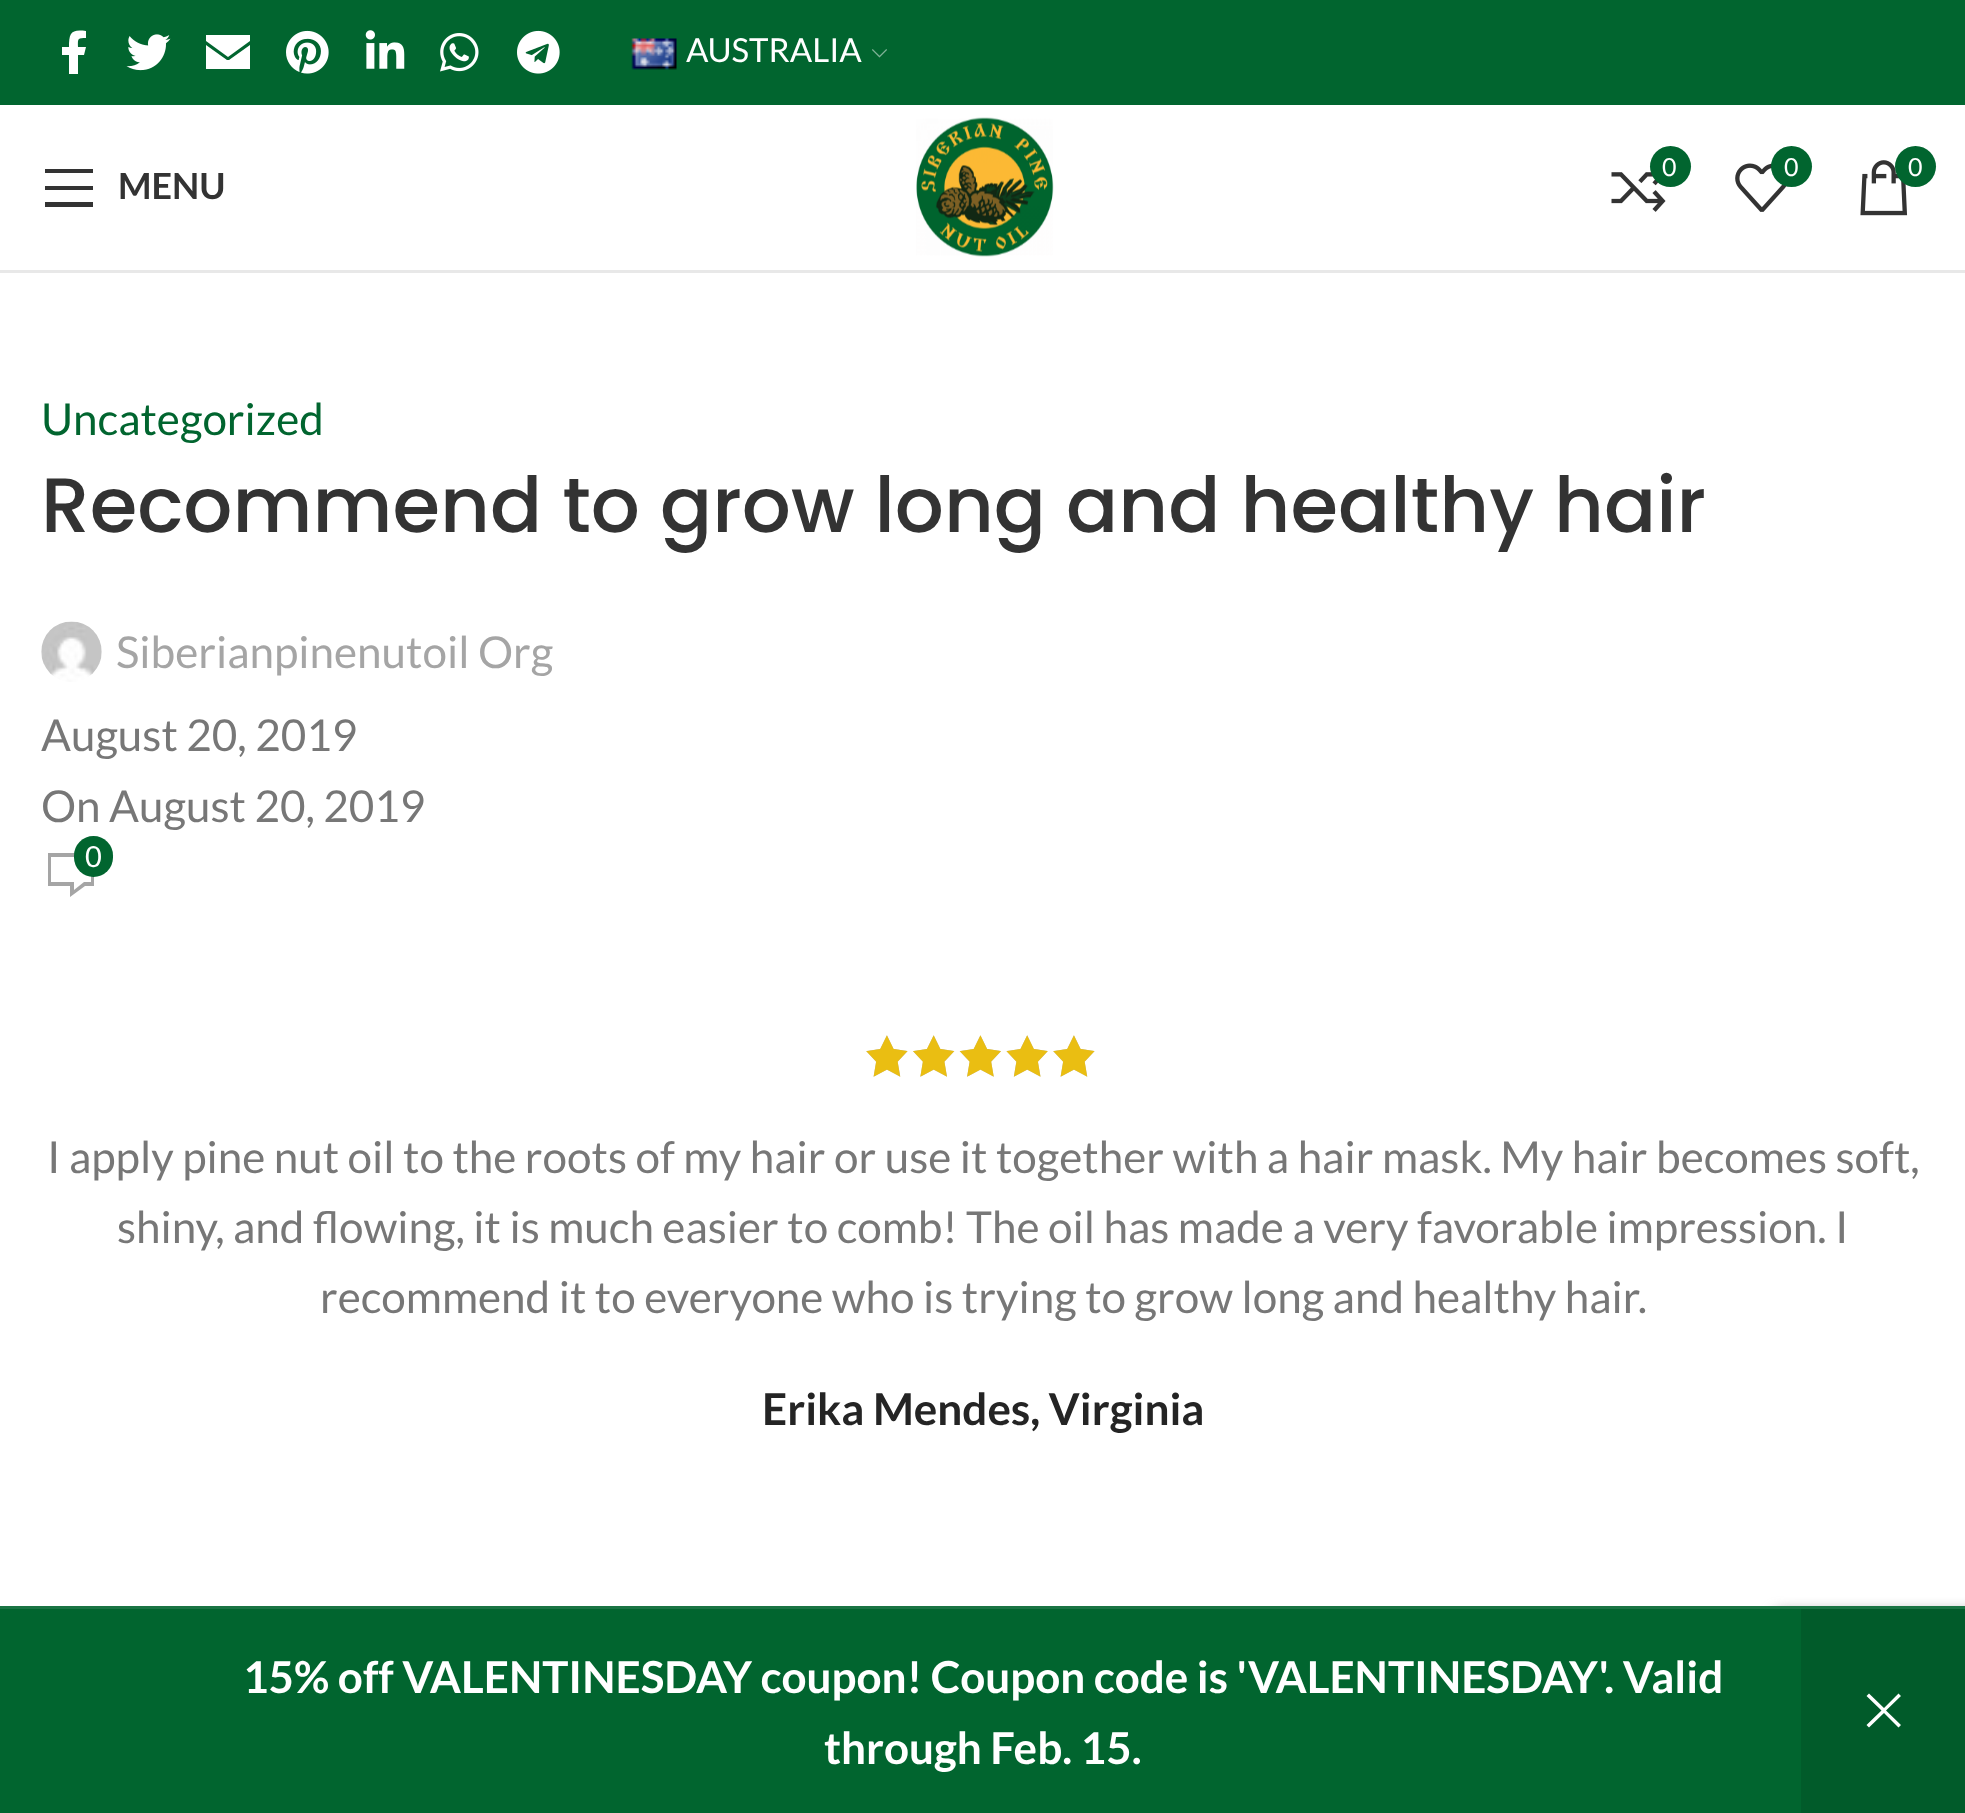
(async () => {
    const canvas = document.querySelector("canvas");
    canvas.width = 1965;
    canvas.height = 1813;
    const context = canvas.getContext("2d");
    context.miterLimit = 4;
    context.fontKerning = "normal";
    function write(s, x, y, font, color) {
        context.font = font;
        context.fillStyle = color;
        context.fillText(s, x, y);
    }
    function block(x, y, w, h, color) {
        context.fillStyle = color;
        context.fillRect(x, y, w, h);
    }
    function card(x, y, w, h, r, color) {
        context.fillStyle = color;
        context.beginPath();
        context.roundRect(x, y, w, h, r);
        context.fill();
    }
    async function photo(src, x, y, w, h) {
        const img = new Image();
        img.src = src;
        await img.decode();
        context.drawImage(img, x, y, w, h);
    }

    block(0, 0, 1965, 1813, "rgb(255, 255, 255)");
    block(0, 0, 1965, 105, "rgb(1, 101, 47)");
    context.fillStyle = "rgb(255, 255, 255)";
    context.beginPath();
    context.moveTo(84, 55);
    context.lineTo(86, 47);
    context.lineTo(78, 47);
    context.bezierCurveTo(78, 39, 77, 38, 86, 38);
    context.lineTo(86, 31);
    context.bezierCurveTo(71, 29, 69, 33, 69, 47);
    context.lineTo(62, 47);
    context.lineTo(62, 55);
    context.lineTo(69, 55);
    context.lineTo(69, 74);
    context.lineTo(78, 74);
    context.lineTo(78, 55);
    context.closePath();
    context.fill();
    await photo("media/1.png", 126, 34, 45, 37);
    context.beginPath();
    context.moveTo(250, 35);
    context.lineTo(206, 35);
    context.lineTo(206, 41);
    context.lineTo(228, 57);
    context.lineTo(250, 41);
    context.closePath();
    context.moveTo(250, 45);
    context.lineTo(229, 60);
    context.lineTo(227, 60);
    context.lineTo(206, 45);
    context.lineTo(206, 69);
    context.lineTo(250, 69);
    context.closePath();
    context.fill();
    await photo("media/2.png", 286, 30, 43, 44);
    await photo("media/3.png", 365, 30, 40, 39);
    await photo("media/4.png", 440, 33, 39, 39);
    await photo("media/5.png", 517, 30, 43, 44);
    await photo("media/6.png", 631, 38, 46, 32);
    write("AUSTRALIA", 686, 62, "33px Lato", "rgb(255, 255, 255)");
    await photo("media/7.png", 872, 49, 15, 9);
    block(0, 270, 1965, 3, "rgb(232, 232, 232)");
    await photo("media/8.png", 916, 117, 138, 140);
    await photo("media/9.png", 1611, 172, 55, 40);
    context.fillStyle = "rgb(1, 101, 47)";
    context.beginPath();
    context.arc(1670.5, 166.5, 20.5, 0, Math.PI * 2);
    context.fill();
    write("0", 1662, 176, "25px Lato", "rgb(255, 255, 255)");
    await photo("media/10.png", 1735, 163, 52, 49);
    context.fillStyle = "rgb(1, 101, 47)";
    context.beginPath();
    context.arc(1791.5, 166.5, 20.5, 0, Math.PI * 2);
    context.fill();
    write("0", 1784, 176, "25px Lato", "rgb(255, 255, 255)");
    await photo("media/11.png", 1860, 160, 48, 56);
    context.fillStyle = "rgb(1, 101, 47)";
    context.beginPath();
    context.arc(1915.5, 166.5, 20.5, 0, Math.PI * 2);
    context.fill();
    write("0", 1908, 176, "25px Lato", "rgb(255, 255, 255)");
    context.fillStyle = "rgb(51, 51, 51)";
    context.beginPath();
    context.moveTo(45, 173);
    context.lineTo(93, 173);
    context.lineTo(93, 169);
    context.lineTo(45, 169);
    context.closePath();
    context.moveTo(45, 190);
    context.lineTo(93, 190);
    context.lineTo(93, 186);
    context.lineTo(45, 186);
    context.closePath();
    context.moveTo(45, 207);
    context.lineTo(93, 207);
    context.lineTo(93, 202);
    context.lineTo(45, 202);
    context.closePath();
    context.fill();
    write("MENU", 118, 199, "bold 36px Lato", "rgb(51, 51, 51)");
    write("Uncategorized", 41, 435, "44px Lato", "rgb(1, 101, 47)");
    write("Recommend to grow long and healthy hair", 41, 532, "500 77px Poppins", "rgb(51, 51, 51)");
    await photo("media/12.png", 41, 621, 61, 61);
    write("Siberianpinenutoil Org", 116, 668, "44px Lato", "rgb(165, 165, 165)");
    write("August 20, 2019", 41, 751, "44px Lato", "rgb(119, 119, 119)");
    write("On August 20, 2019", 41, 822, "44px Lato", "rgb(119, 119, 119)");
    context.fillStyle = "rgb(165, 165, 165)";
    context.beginPath();
    context.moveTo(85, 886);
    context.lineTo(94, 886);
    context.lineTo(94, 853);
    context.lineTo(48, 853);
    context.lineTo(48, 886);
    context.lineTo(70, 886);
    context.lineTo(70, 897);
    context.closePath();
    context.moveTo(74, 890);
    context.lineTo(74, 882);
    context.lineTo(51, 882);
    context.lineTo(51, 857);
    context.lineTo(91, 857);
    context.lineTo(91, 882);
    context.lineTo(84, 882);
    context.closePath();
    context.fill();
    card(74, 836, 39, 41, 19.5, "rgb(1, 101, 47)");
    write("0", 85, 867, "29px Lato", "rgb(255, 255, 255)");
    await photo("media/13.png", 866, 1035, 229, 42);
    await photo("media/14.png", 866, 1035, 229, 42);
    write("I apply pine nut oil to the roots of my hair or use it together with a hair mask. My hair becomes soft,", 47, 1173, "44px Lato", "rgb(119, 119, 119)");
    write("shiny, and flowing, it is much easier to comb! The oil has made a very favorable impression. I", 117, 1243, "44px Lato", "rgb(119, 119, 119)");
    write("recommend it to everyone who is trying to grow long and healthy hair.", 320, 1313, "44px Lato", "rgb(119, 119, 119)");
    write("Erika Mendes, Virginia", 762, 1425, "bold 44px Lato", "rgb(36, 36, 36)");
    context.fillStyle = "rgb(128, 128, 128)";
    context.filter = "blur(7px)";
    context.beginPath();
    context.roundRect(1774, 1612, 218, 165, 6);
    context.fill();
    context.filter = "none";
    block(0, 1609, 1801, 204, "rgb(1, 101, 47)");
    block(0, 1606, 1965, 3, "rgb(26, 116, 68)");
    write("15% off VALENTINESDAY coupon! Coupon code is 'VALENTINESDAY'. Valid", 243, 1693, "bold 44px Lato", "rgb(255, 255, 255)");
    block(1801, 1609, 164, 204, "rgb(1, 91, 42)");
    context.fillStyle = "rgb(255, 255, 255)";
    context.beginPath();
    context.moveTo(1866.5, 1696);
    context.lineTo(1881.5, 1710.5);
    context.lineTo(1866.5, 1725);
    context.lineTo(1869, 1727.5);
    context.lineTo(1884, 1713);
    context.lineTo(1898.5, 1727.5);
    context.lineTo(1901, 1725);
    context.lineTo(1886, 1710.5);
    context.lineTo(1901, 1696);
    context.lineTo(1898.5, 1693.5);
    context.lineTo(1884, 1708);
    context.lineTo(1869, 1693.5);
    context.closePath();
    context.fill();
    write("through Feb. 15.", 824, 1764, "bold 44px Lato", "rgb(255, 255, 255)");
})();
